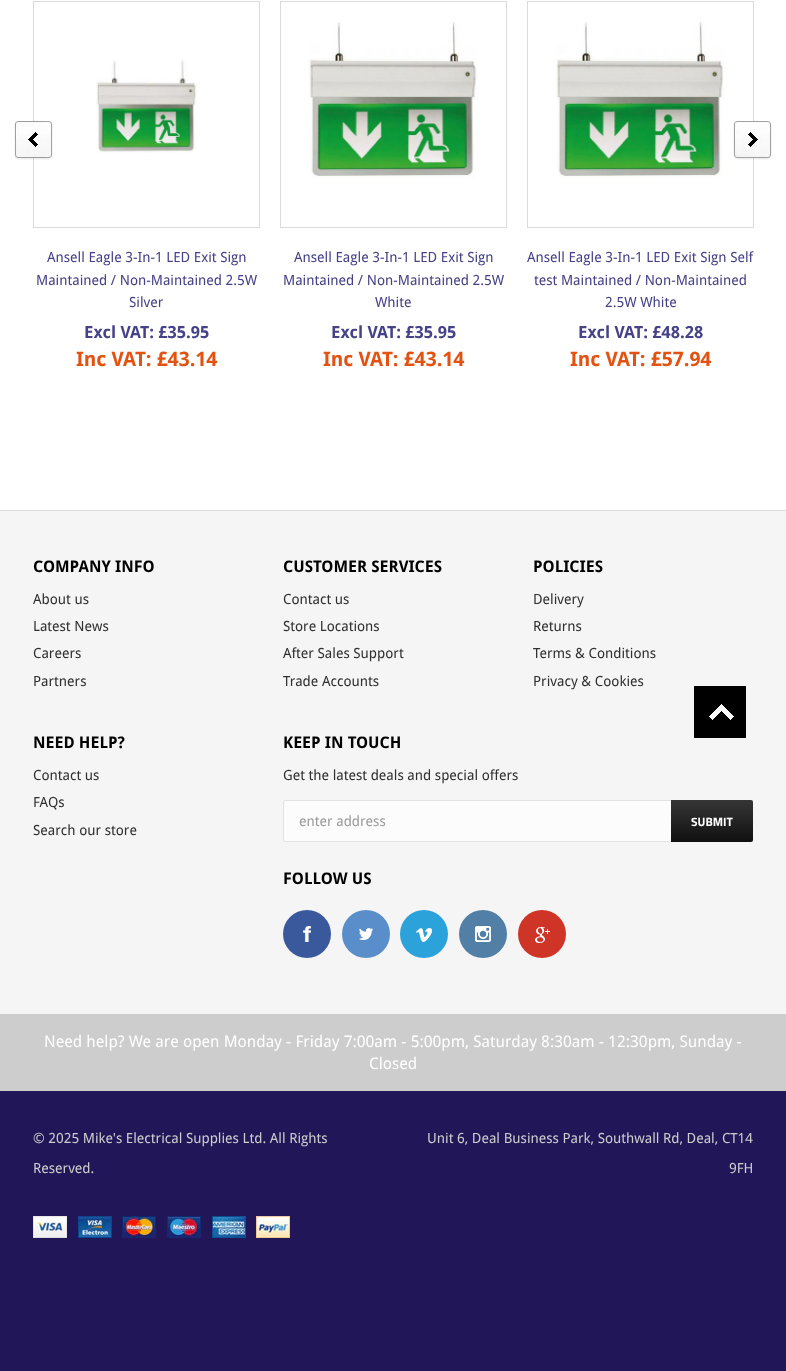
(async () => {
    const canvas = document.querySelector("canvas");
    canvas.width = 786;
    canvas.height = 1371;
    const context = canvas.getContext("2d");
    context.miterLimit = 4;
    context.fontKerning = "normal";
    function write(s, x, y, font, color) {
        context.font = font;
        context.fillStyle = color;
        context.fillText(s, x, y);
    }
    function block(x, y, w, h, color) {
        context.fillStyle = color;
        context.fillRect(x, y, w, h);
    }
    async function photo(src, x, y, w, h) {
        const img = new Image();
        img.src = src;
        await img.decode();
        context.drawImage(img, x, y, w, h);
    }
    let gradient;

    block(0, 0, 786, 1371, "rgb(255, 255, 255)");
    context.strokeStyle = "rgb(218, 218, 218)";
    context.strokeRect(33.5, 1.5, 226, 226);
    await photo("media/1.png", 14, 121, 39, 39);
    context.strokeRect(527.5, 1.5, 226, 226);
    await photo("media/2.png", 733, 121, 39, 39);
    await photo("media/3.png", 96, 60, 101, 93);
    write("Ansell Eagle 3-In-1 LED Exit Sign", 47, 262, "14px Droid Sans", "rgb(69, 66, 136)");
    write("Maintained / Non-Maintained 2.5W", 36, 285, "14px Droid Sans", "rgb(69, 66, 136)");
    write("Silver", 129, 307, "14px Droid Sans", "rgb(69, 66, 136)");
    write("Excl VAT: £35.95", 84, 338, "bold 16.75px Droid Sans", "rgb(69, 66, 136)");
    write("Inc VAT: £43.14", 76, 366, "bold 20px Droid Sans", "rgb(227, 82, 17)");
    context.strokeRect(280.5, 1.5, 226, 226);
    await photo("media/4.png", 309, 22, 169, 157);
    write("Ansell Eagle 3-In-1 LED Exit Sign", 294, 262, "14px Droid Sans", "rgb(69, 66, 136)");
    write("Maintained / Non-Maintained 2.5W", 283, 285, "14px Droid Sans", "rgb(69, 66, 136)");
    write("White", 375, 307, "14px Droid Sans", "rgb(69, 66, 136)");
    write("Excl VAT: £35.95", 331, 338, "bold 16.75px Droid Sans", "rgb(69, 66, 136)");
    write("Inc VAT: £43.14", 323, 366, "bold 20px Droid Sans", "rgb(227, 82, 17)");
    await photo("media/4.png", 556, 22, 169, 157);
    write("Ansell Eagle 3-In-1 LED Exit Sign Self", 527, 262, "14px Droid Sans", "rgb(69, 66, 136)");
    write("test Maintained / Non-Maintained", 534, 285, "14px Droid Sans", "rgb(69, 66, 136)");
    write("2.5W White", 605, 307, "14px Droid Sans", "rgb(69, 66, 136)");
    write("Excl VAT: £48.28", 578, 338, "bold 16.75px Droid Sans", "rgb(69, 66, 136)");
    write("Inc VAT: £57.94", 570, 366, "bold 20px Droid Sans", "rgb(227, 82, 17)");
    block(0, 511, 786, 503, "rgb(245, 245, 245)");
    block(0, 510, 786, 1, "rgb(218, 218, 218)");
    write("COMPANY INFO", 33, 572, "bold 16px Droid Sans", "rgb(0, 0, 0)");
    write("About us", 33, 604, "14px Droid Sans", "rgb(48, 48, 48)");
    write("Latest News", 33, 631, "14px Droid Sans", "rgb(48, 48, 48)");
    write("Careers", 33, 658, "14px Droid Sans", "rgb(48, 48, 48)");
    write("Partners", 33, 686, "14px Droid Sans", "rgb(48, 48, 48)");
    write("CUSTOMER SERVICES", 283, 572, "bold 16px Droid Sans", "rgb(0, 0, 0)");
    write("Contact us", 283, 604, "14px Droid Sans", "rgb(48, 48, 48)");
    write("Store Locations", 283, 631, "14px Droid Sans", "rgb(48, 48, 48)");
    write("After Sales Support", 283, 658, "14px Droid Sans", "rgb(48, 48, 48)");
    write("Trade Accounts", 283, 686, "14px Droid Sans", "rgb(48, 48, 48)");
    write("POLICIES", 533, 572, "bold 16px Droid Sans", "rgb(0, 0, 0)");
    write("Delivery", 533, 604, "14px Droid Sans", "rgb(48, 48, 48)");
    write("Returns", 533, 631, "14px Droid Sans", "rgb(48, 48, 48)");
    write("Terms & Conditions", 533, 658, "14px Droid Sans", "rgb(48, 48, 48)");
    write("Privacy & Cookies", 533, 686, "14px Droid Sans", "rgb(48, 48, 48)");
    write("NEED HELP?", 33, 748, "bold 16px Droid Sans", "rgb(0, 0, 0)");
    write("Contact us", 33, 780, "14px Droid Sans", "rgb(48, 48, 48)");
    write("FAQs", 33, 807, "14px Droid Sans", "rgb(48, 48, 48)");
    write("Search our store", 33, 835, "14px Droid Sans", "rgb(48, 48, 48)");
    write("KEEP IN TOUCH", 283, 748, "bold 16px Droid Sans", "rgb(0, 0, 0)");
    write("Get the latest deals and special offers", 283, 780, "14px Droid Sans", "rgb(48, 48, 48)");
    context.fillStyle = "rgb(252, 252, 252)";
    context.beginPath();
    context.roundRect(283.5, 800.5, 469, 41, 1.5);
    context.fill();
    context.strokeStyle = "rgb(226, 226, 226)";
    context.stroke();
    write("enter address", 299, 826, "14px Droid Sans", "rgb(155, 155, 155)");
    gradient = context.createLinearGradient(712, 800, 712, 842);
    gradient.addColorStop(0, "rgb(54, 54, 54)");
    gradient.addColorStop(1, "rgb(16, 16, 17)");
    context.fillStyle = gradient;
    context.beginPath();
    context.roundRect(671, 800, 82, 42, [0, 2, 2, 0]);
    context.fill();
    write("SUBMIT", 691, 826, "bold 12px Titillium Web", "rgb(255, 255, 255)");
    write("FOLLOW US", 283, 884, "bold 16px Droid Sans", "rgb(0, 0, 0)");
    context.fillStyle = "rgb(58, 89, 156)";
    context.beginPath();
    context.arc(307, 934, 24, 0, Math.PI * 2);
    context.fill();
    await photo("media/5.png", 303, 926, 8, 16);
    context.fillStyle = "rgb(90, 142, 202)";
    context.beginPath();
    context.arc(366, 934, 24, 0, Math.PI * 2);
    context.fill();
    await photo("media/6.png", 359, 928, 14, 12);
    context.fillStyle = "rgb(44, 162, 219)";
    context.beginPath();
    context.arc(424, 934, 24, 0, Math.PI * 2);
    context.fill();
    await photo("media/7.png", 416, 928, 16, 14);
    context.fillStyle = "rgb(82, 127, 166)";
    context.beginPath();
    context.arc(483, 934, 24, 0, Math.PI * 2);
    context.fill();
    await photo("media/8.png", 475, 926, 16, 16);
    context.fillStyle = "rgb(206, 53, 39)";
    context.beginPath();
    context.arc(542, 934, 24, 0, Math.PI * 2);
    context.fill();
    await photo("media/9.png", 535, 927, 15, 16);
    block(0, 1014, 786, 77, "rgb(205, 205, 205)");
    write("Need help? We are open Monday - Friday 7:00am - 5:00pm, Saturday 8:30am - 12:30pm, Sunday -", 44, 1047, "16px Droid Sans", "rgb(255, 255, 255)");
    write("Closed", 369, 1069, "16px Droid Sans", "rgb(255, 255, 255)");
    block(0, 1091, 786, 280, "rgb(33, 23, 88)");
    write("© 2025 Mike's Electrical Supplies Ltd. All Rights", 33, 1143, "14px Droid Sans", "rgb(204, 204, 204)");
    write("Reserved.", 33, 1173, "14px Droid Sans", "rgb(204, 204, 204)");
    write("Unit 6, Deal Business Park, Southwall Rd, Deal, CT14", 427, 1143, "14px Droid Sans", "rgb(204, 204, 204)");
    write("9FH", 729, 1173, "14px Droid Sans", "rgb(204, 204, 204)");
    await photo("media/10.png", 33, 1216, 34, 22);
    await photo("media/11.png", 78, 1216, 34, 22);
    await photo("media/12.png", 122, 1216, 34, 22);
    await photo("media/13.png", 167, 1216, 34, 22);
    await photo("media/14.png", 212, 1216, 34, 22);
    await photo("media/15.png", 256, 1216, 34, 22);
    block(694, 686, 52, 52, "rgb(0, 0, 0)");
    await photo("media/16.png", 709, 704, 25, 16);
})();
